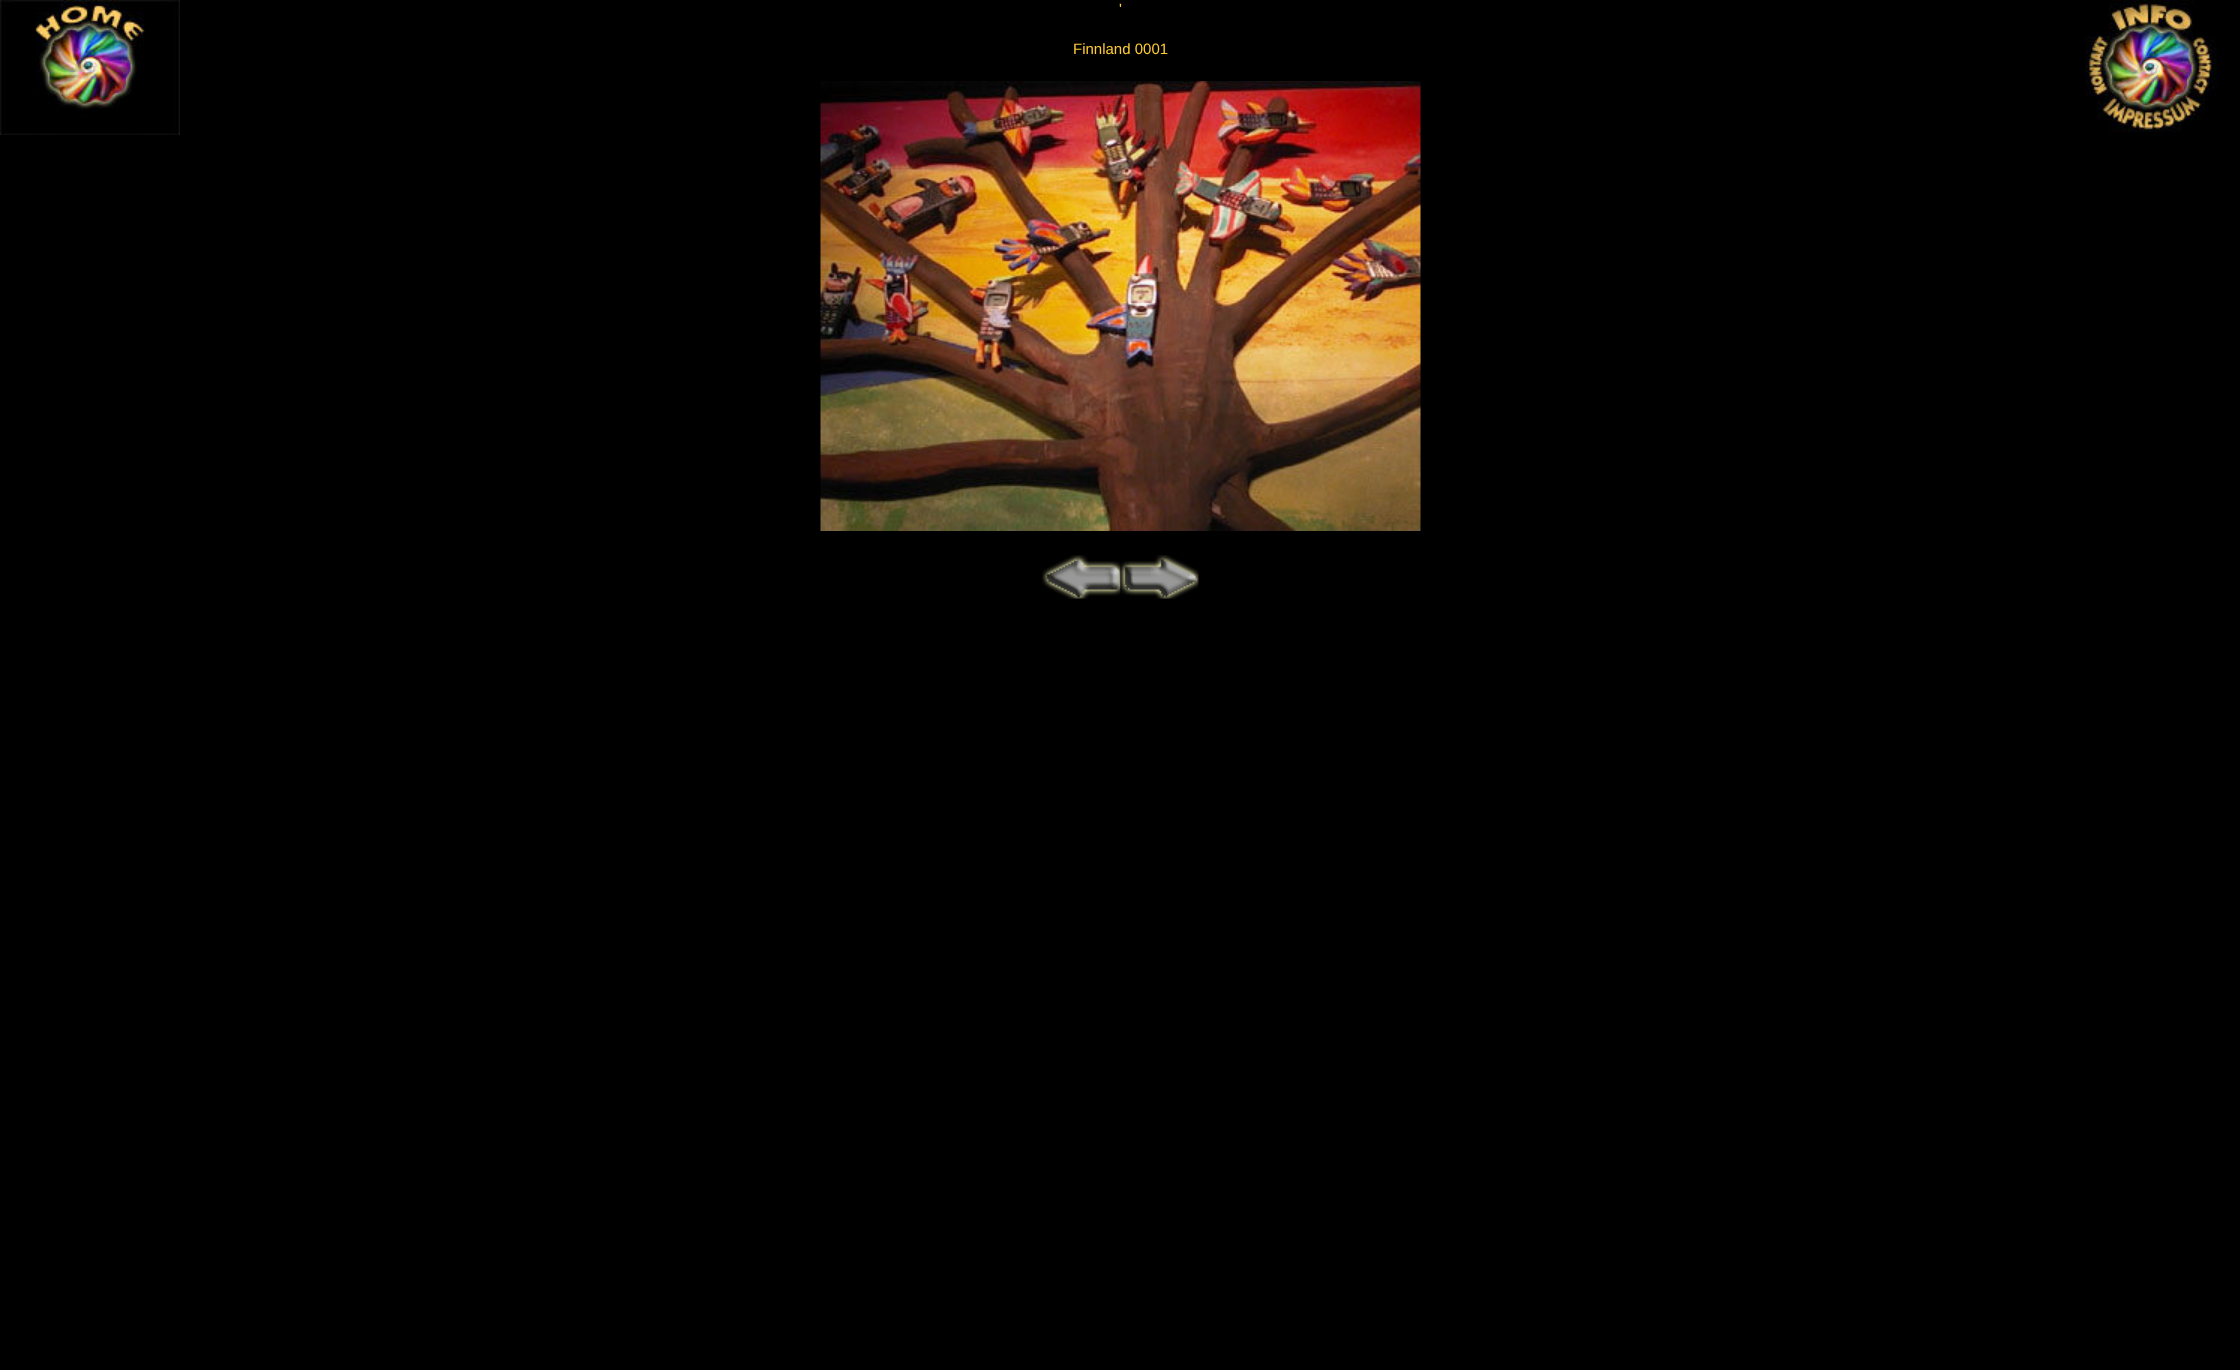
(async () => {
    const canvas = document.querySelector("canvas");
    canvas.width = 2240;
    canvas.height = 1370;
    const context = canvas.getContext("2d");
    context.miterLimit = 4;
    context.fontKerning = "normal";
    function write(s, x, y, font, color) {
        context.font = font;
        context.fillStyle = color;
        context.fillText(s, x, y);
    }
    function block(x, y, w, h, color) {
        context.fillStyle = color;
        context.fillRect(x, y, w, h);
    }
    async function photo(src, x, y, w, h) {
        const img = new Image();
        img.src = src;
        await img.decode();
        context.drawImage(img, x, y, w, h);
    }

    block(0, 0, 2240, 1370, "rgb(0, 0, 0)");
    await photo("media/1.png", 0, 0, 180, 135);
    await photo("media/2.png", 2085, 0, 132, 133);
    write("'", 1119, 14, "15px Liberation Sans", "rgb(255, 204, 51)");
    write("Finnland 0001", 1073, 54, "15px Liberation Sans", "rgb(255, 204, 51)");
    await photo("media/3.png", 820, 81, 601, 450);
    await photo("media/4.png", 1042, 555, 79, 44);
    await photo("media/5.png", 1120, 555, 79, 44);
})();
